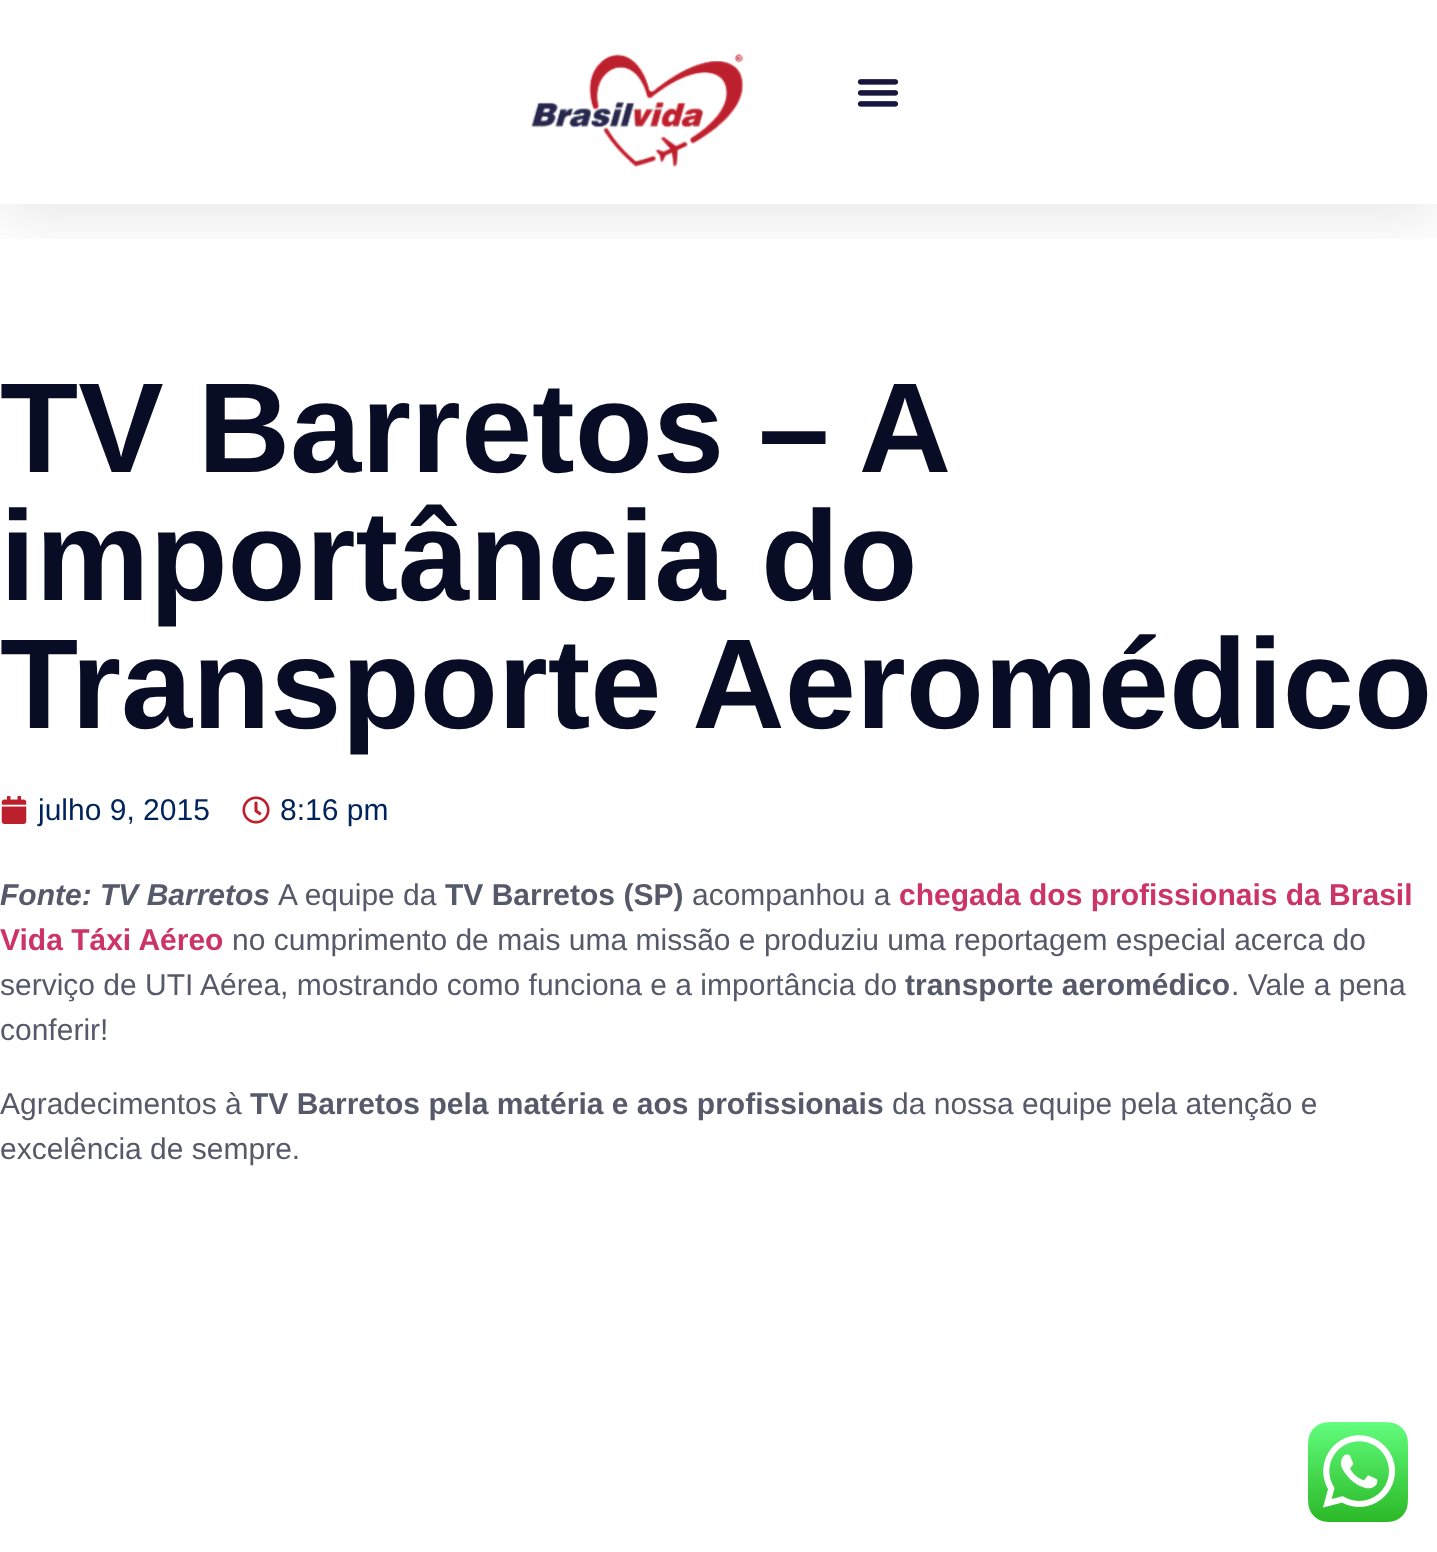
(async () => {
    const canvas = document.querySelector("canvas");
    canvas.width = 1437;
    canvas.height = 1552;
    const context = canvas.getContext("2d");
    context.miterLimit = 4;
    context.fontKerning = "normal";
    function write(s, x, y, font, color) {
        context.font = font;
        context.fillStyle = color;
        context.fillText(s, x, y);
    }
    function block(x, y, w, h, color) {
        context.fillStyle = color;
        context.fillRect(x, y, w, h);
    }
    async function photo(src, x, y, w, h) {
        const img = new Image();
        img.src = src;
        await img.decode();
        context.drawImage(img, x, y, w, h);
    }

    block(0, 0, 1437, 1552, "rgb(255, 255, 255)");
    context.save();
    context.beginPath();
    context.rect(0, 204, 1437, 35);
    context.clip();
    context.fillStyle = "rgba(0, 0, 0, 0.1)";
    context.filter = "blur(30px)";
    context.beginPath();
    context.rect(0, 10, 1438, 204);
    context.fill();
    context.filter = "none";
    context.restore();
    await photo("media/1.png", 531, 54, 213, 113);
    await photo("media/2.png", 857, 79, 42, 28);
    context.wordSpacing = "-1.5px";
    write("TV Barretos – A", 0, 472, "bold 128px Liberation Sans", "rgb(8, 12, 36)");
    context.wordSpacing = "0px";
    write("importância do", 0, 600, "bold 128px Liberation Sans", "rgb(8, 12, 36)");
    write("Transporte Aeromédico", 0, 728, "bold 128px Liberation Sans", "rgb(8, 12, 36)");
    await photo("media/3.png", 1, 796, 26, 28);
    write("julho 9, 2015", 38, 820, "30px Liberation Sans", "rgb(0, 35, 90)");
    await photo("media/4.png", 242, 796, 28, 28);
    write("8:16 pm", 280, 820, "30px Liberation Sans", "rgb(0, 35, 90)");
    write("Fonte: TV Barretos", 0, 905, "italic bold 30px Liberation Sans", "rgb(86, 89, 105)");
    write("A equipe da", 278, 905, "30px Liberation Sans", "rgb(86, 89, 105)");
    write("TV Barretos (SP)", 445, 905, "bold 30px Liberation Sans", "rgb(86, 89, 105)");
    write("acompanhou a", 692, 905, "30px Liberation Sans", "rgb(86, 89, 105)");
    write("chegada dos profissionais da Brasil", 899, 905, "bold 30px Liberation Sans", "rgb(204, 51, 102)");
    write("Vida Táxi Aéreo", 0, 950, "bold 30px Liberation Sans", "rgb(204, 51, 102)");
    write("no cumprimento de mais uma missão e produziu uma reportagem especial acerca do", 232, 950, "30px Liberation Sans", "rgb(86, 89, 105)");
    write("serviço de UTI Aérea, mostrando como funciona e a importância do", 0, 995, "30px Liberation Sans", "rgb(86, 89, 105)");
    write("transporte aeromédico", 905, 995, "bold 30px Liberation Sans", "rgb(86, 89, 105)");
    write(". Vale a pena", 1231, 995, "30px Liberation Sans", "rgb(86, 89, 105)");
    write("conferir!", 0, 1040, "30px Liberation Sans", "rgb(86, 89, 105)");
    write("Agradecimentos à", 0, 1114, "30px Liberation Sans", "rgb(86, 89, 105)");
    write("TV Barretos pela matéria e aos profissionais", 250, 1114, "bold 30px Liberation Sans", "rgb(86, 89, 105)");
    write("da nossa equipe pela atenção e", 892, 1114, "30px Liberation Sans", "rgb(86, 89, 105)");
    write("excelência de sempre.", 0, 1159, "30px Liberation Sans", "rgb(86, 89, 105)");
    await photo("media/5.png", 1308, 1422, 100, 100);
})();
